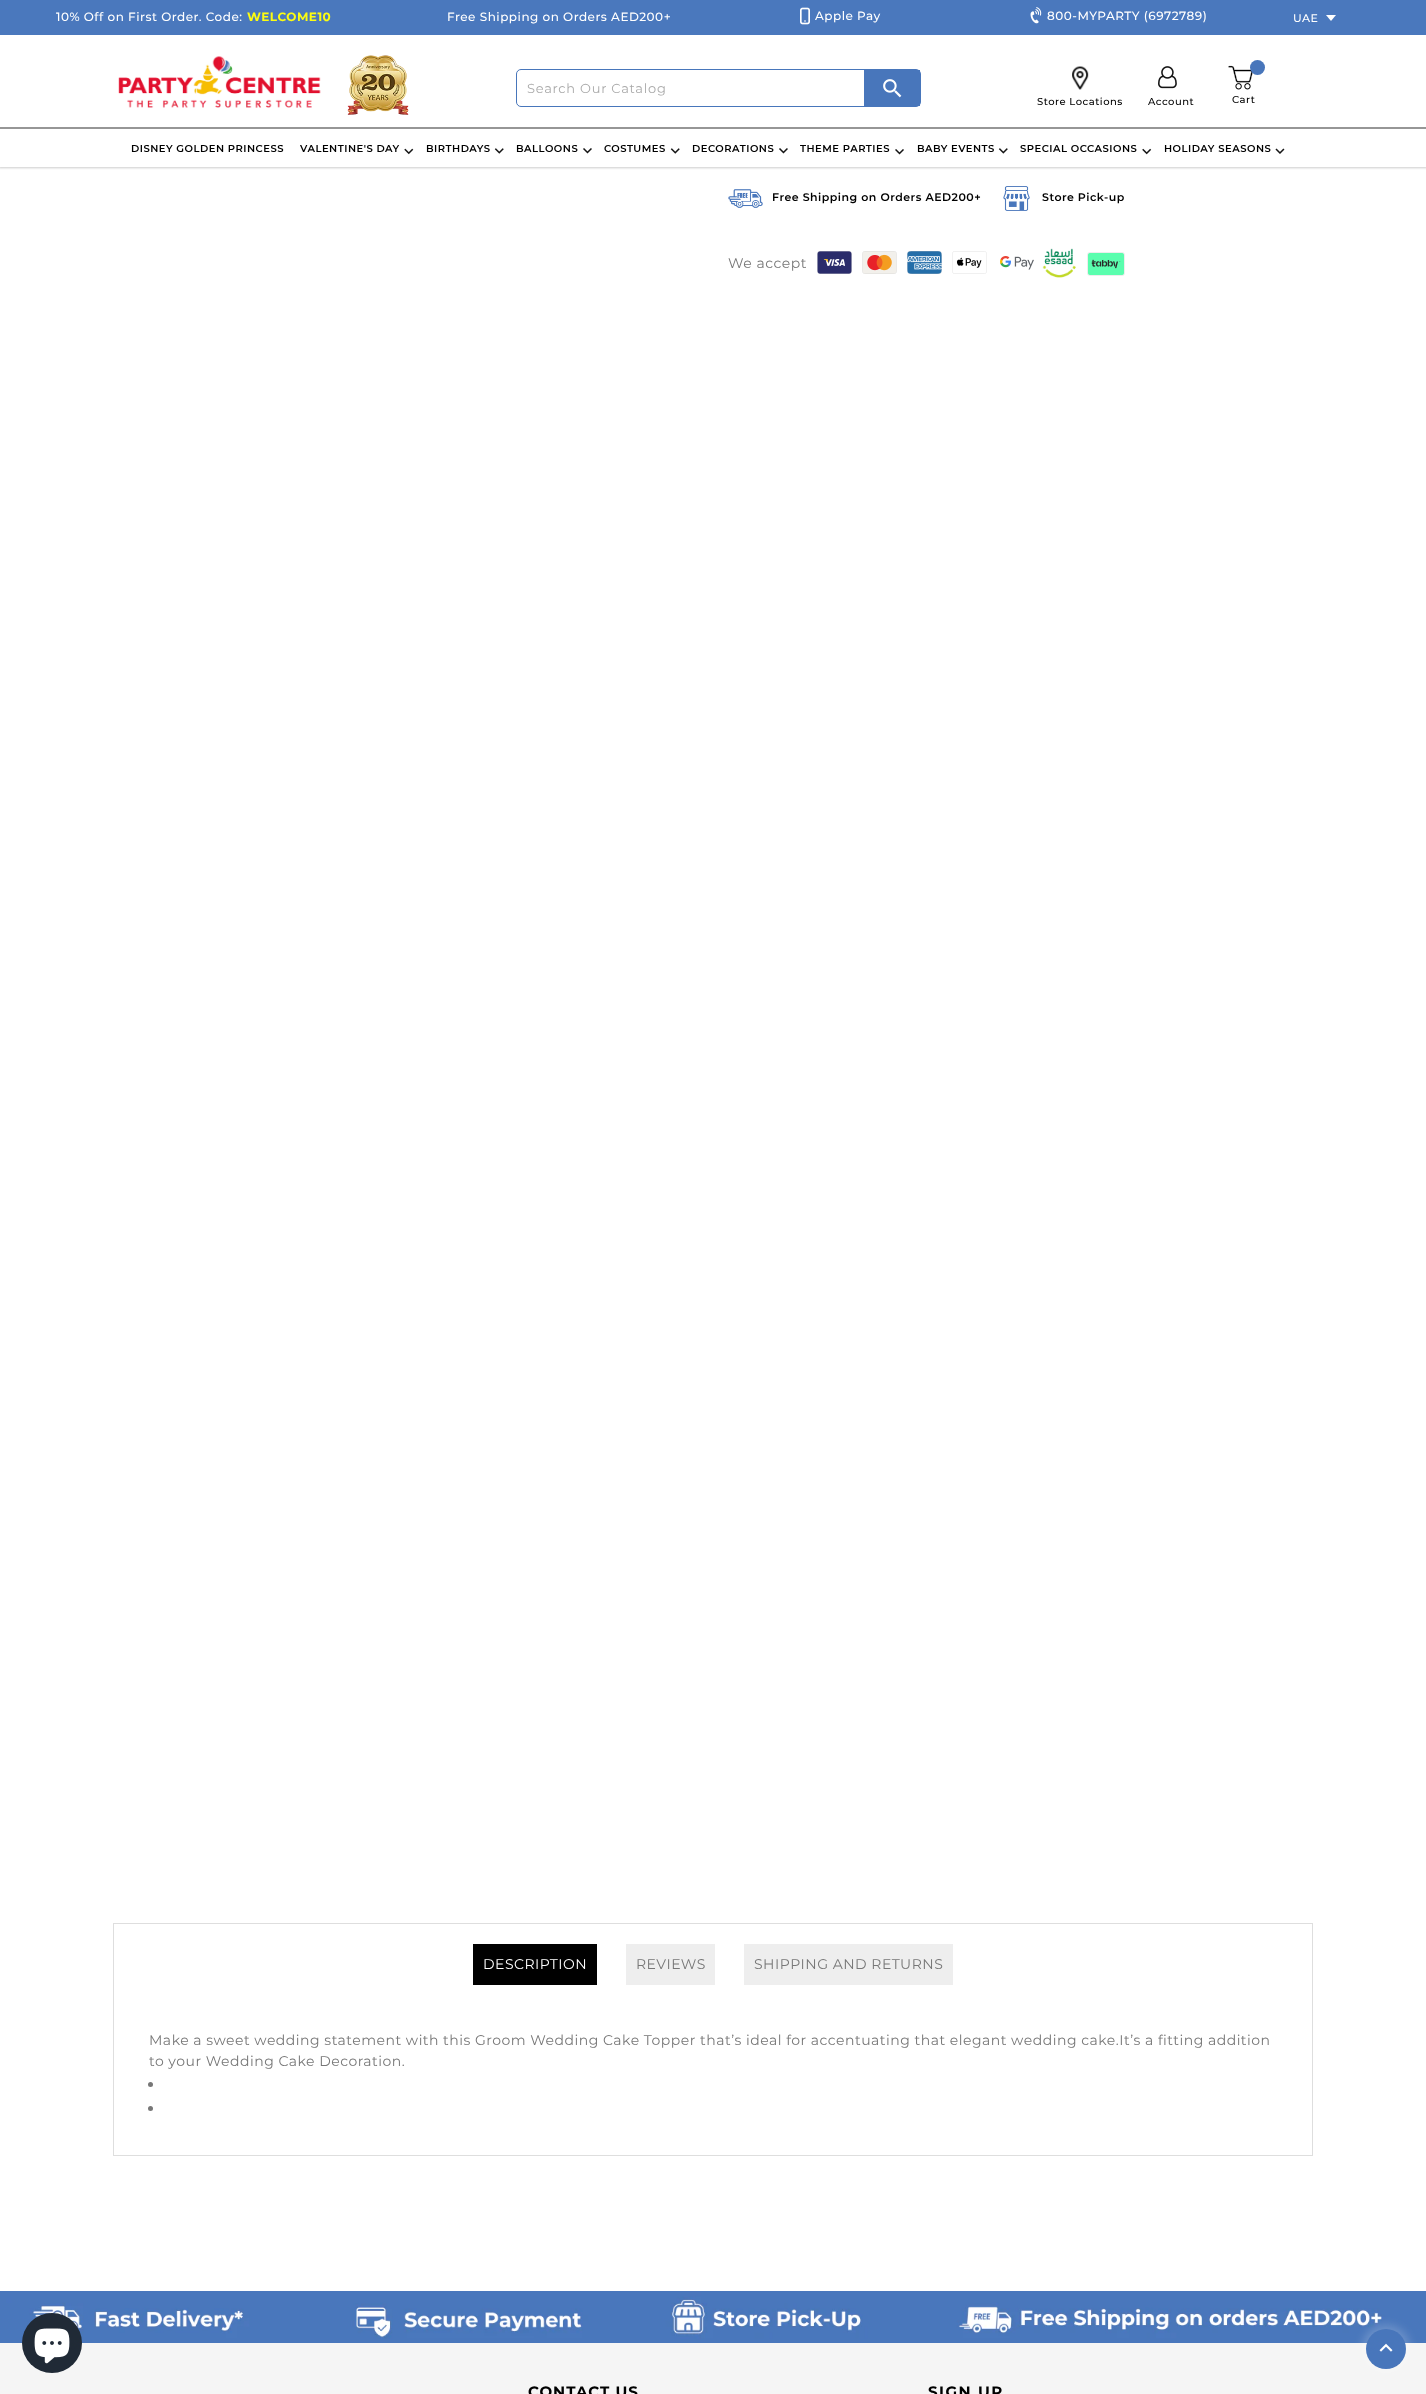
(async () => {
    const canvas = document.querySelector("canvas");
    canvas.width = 1426;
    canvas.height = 2394;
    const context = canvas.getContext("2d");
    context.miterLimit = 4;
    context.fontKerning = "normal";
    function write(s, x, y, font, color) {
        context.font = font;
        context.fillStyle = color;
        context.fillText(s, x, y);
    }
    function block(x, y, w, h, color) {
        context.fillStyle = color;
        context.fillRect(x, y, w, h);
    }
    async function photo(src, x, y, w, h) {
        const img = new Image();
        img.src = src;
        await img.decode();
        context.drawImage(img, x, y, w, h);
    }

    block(0, 0, 1426, 2394, "rgb(255, 255, 255)");
    block(0, 2343, 1426, 51, "rgb(245, 245, 245)");
    await photo("media/28.png", 0, 2291, 1426, 52);
    context.fillStyle = "rgb(32, 42, 54)";
    context.beginPath();
    context.arc(52, 2343, 30, 0, Math.PI * 2);
    context.fill();
    await photo("media/1.png", 34, 2328, 36, 36);
    context.fillStyle = "rgba(0, 0, 0, 0.2)";
    context.filter = "blur(1px)";
    context.beginPath();
    context.rect(-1, -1, 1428, 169);
    context.fill();
    context.filter = "none";
    block(0, 35, 1426, 132, "rgb(255, 255, 255)");
    block(0, 0, 1426, 35, "rgb(74, 120, 189)");
    context.letterSpacing = "0.5px";
    write("10% Off on First Order. Code:", 56, 21, "500 12px Montserrat", "rgb(255, 255, 255)");
    write("WELCOME10", 247, 21, "bold 12px Montserrat", "rgb(252, 252, 17)");
    write("Free Shipping on Orders AED200+", 447, 21, "500 12px Montserrat", "rgb(255, 255, 255)");
    await photo("media/2.png", 800, 7, 10, 18);
    write("Apple Pay", 815, 20, "500 12px Montserrat", "rgb(255, 255, 255)");
    await photo("media/3.png", 1030, 7, 12, 17);
    write("800-MYPARTY (6972789)", 1047, 20, "500 12px Montserrat", "rgb(255, 255, 255)");
    write("UAE", 1293, 22, "500 11px Montserrat", "rgb(255, 255, 255)");
    context.beginPath();
    context.moveTo(1326, 15);
    context.lineTo(1336, 15);
    context.lineTo(1331, 21);
    context.closePath();
    context.fill();
    await photo("media/4.png", 118, 56, 203, 52);
    await photo("media/5.png", 347, 55, 62, 60);
    context.beginPath();
    context.roundRect(516.5, 69.5, 404, 37, 4.5);
    context.strokeStyle = "rgb(72, 118, 187)";
    context.stroke();
    context.letterSpacing = "0.75px";
    write("Search Our Catalog", 527, 93, "13px Montserrat", "rgb(170, 170, 170)");
    block(864, 70, 56, 36, "rgb(72, 118, 187)");
    await photo("media/6.png", 883, 79, 19, 19);
    await photo("media/7.png", 1072, 66, 17, 24);
    context.letterSpacing = "0.5px";
    write("Store Locations", 1037, 105, "500 10px Montserrat", "rgb(0, 0, 0)");
    await photo("media/8.png", 1158, 66, 19, 23);
    write("Account", 1148, 105, "500 10px Montserrat", "rgb(0, 0, 0)");
    await photo("media/9.png", 1228, 65, 25, 25);
    context.fillStyle = "rgb(72, 118, 187)";
    context.beginPath();
    context.arc(1257.5, 67.5, 7.5, 0, Math.PI * 2);
    context.fill();
    write("Cart", 1232, 103, "500 10px Montserrat", "rgb(0, 0, 0)");
    block(0, 127, 1426, 2, "rgb(150, 150, 150)");
    write("DISNEY GOLDEN PRINCESS", 131, 152, "600 10px Montserrat", "rgb(0, 0, 0)");
    write("VALENTINE'S DAY", 300, 152, "600 10px Montserrat", "rgb(0, 0, 0)");
    await photo("media/10.png", 404, 148, 10, 7);
    write("BIRTHDAYS", 426, 152, "600 10px Montserrat", "rgb(0, 0, 0)");
    await photo("media/11.png", 494, 148, 10, 6);
    write("BALLOONS", 516, 152, "600 10px Montserrat", "rgb(0, 0, 0)");
    await photo("media/12.png", 583, 148, 9, 6);
    write("COSTUMES", 604, 152, "600 10px Montserrat", "rgb(0, 0, 0)");
    await photo("media/13.png", 670, 148, 10, 6);
    write("DECORATIONS", 692, 152, "600 10px Montserrat", "rgb(0, 0, 0)");
    await photo("media/14.png", 779, 148, 9, 6);
    write("THEME PARTIES", 800, 152, "600 10px Montserrat", "rgb(0, 0, 0)");
    await photo("media/15.png", 895, 149, 9, 6);
    write("BABY EVENTS", 917, 152, "600 10px Montserrat", "rgb(0, 0, 0)");
    await photo("media/16.png", 998, 148, 10, 6);
    write("SPECIAL OCCASIONS", 1020, 152, "600 10px Montserrat", "rgb(0, 0, 0)");
    await photo("media/17.png", 1142, 148, 10, 7);
    write("HOLIDAY SEASONS", 1164, 152, "600 10px Montserrat", "rgb(0, 0, 0)");
    await photo("media/18.png", 1275, 148, 10, 6);
    await photo("media/19.png", 728, 189, 35, 19);
    write("Free Shipping on Orders AED200+", 772, 201, "600 11px Montserrat", "rgb(0, 0, 0)");
    await photo("media/20.png", 1003, 186, 27, 25);
    write("Store Pick-up", 1042, 201, "600 11px Montserrat", "rgb(0, 0, 0)");
    write("We accept", 728, 268, "14px Montserrat", "rgb(119, 119, 119)");
    await photo("media/21.png", 817, 251, 35, 23);
    await photo("media/22.png", 862, 251, 35, 23);
    await photo("media/23.png", 907, 251, 35, 23);
    await photo("media/24.png", 952, 251, 35, 23);
    await photo("media/25.png", 1000, 256, 34, 14);
    await photo("media/26.png", 1042, 248, 34, 30);
    await photo("media/27.png", 1087, 252, 38, 24);
    context.strokeStyle = "rgb(222, 222, 222)";
    context.strokeRect(113.5, 1923.5, 1199, 232);
    block(473, 1944, 124, 41, "rgb(0, 0, 0)");
    write("DESCRIPTION", 483, 1969, "14px Montserrat", "rgb(255, 255, 255)");
    block(626, 1944, 89, 41, "rgb(238, 238, 238)");
    write("REVIEWS", 636, 1969, "14px Montserrat", "rgb(119, 119, 119)");
    block(744, 1944, 209, 41, "rgb(238, 238, 238)");
    write("SHIPPING AND RETURNS", 754, 1969, "14px Montserrat", "rgb(119, 119, 119)");
    write("Make a sweet wedding statement with this Groom Wedding Cake Topper that’s ideal for accentuating that elegant wedding cake.It’s a fitting addition", 149, 2045, "14px Montserrat", "rgb(119, 119, 119)");
    write("to your Wedding Cake Decoration.", 149, 2066, "14px Montserrat", "rgb(119, 119, 119)");
    context.beginPath();
    context.arc(150.5, 2084.5, 2.5, 0, Math.PI * 2);
    context.fill();
    context.beginPath();
    context.arc(150.5, 2108.5, 2.5, 0, Math.PI * 2);
    context.fill();
    context.letterSpacing = "1px";
    write("CONTACT US", 528, 2397, "bold 15px Montserrat", "rgb(0, 0, 0)");
    context.letterSpacing = "1.5px";
    write("SIGN UP", 928, 2397, "bold 15px Montserrat", "rgb(0, 0, 0)");
    context.fillStyle = "rgba(255, 255, 255, 0.2)";
    context.filter = "blur(5px)";
    context.beginPath();
    context.roundRect(1362, 2325, 48, 48, 24);
    context.fill();
    context.filter = "none";
    context.fillStyle = "rgb(72, 118, 187)";
    context.beginPath();
    context.arc(1386, 2349, 20, 0, Math.PI * 2);
    context.fill();
    await photo("media/29.png", 1379, 2343, 14, 9);
})();
